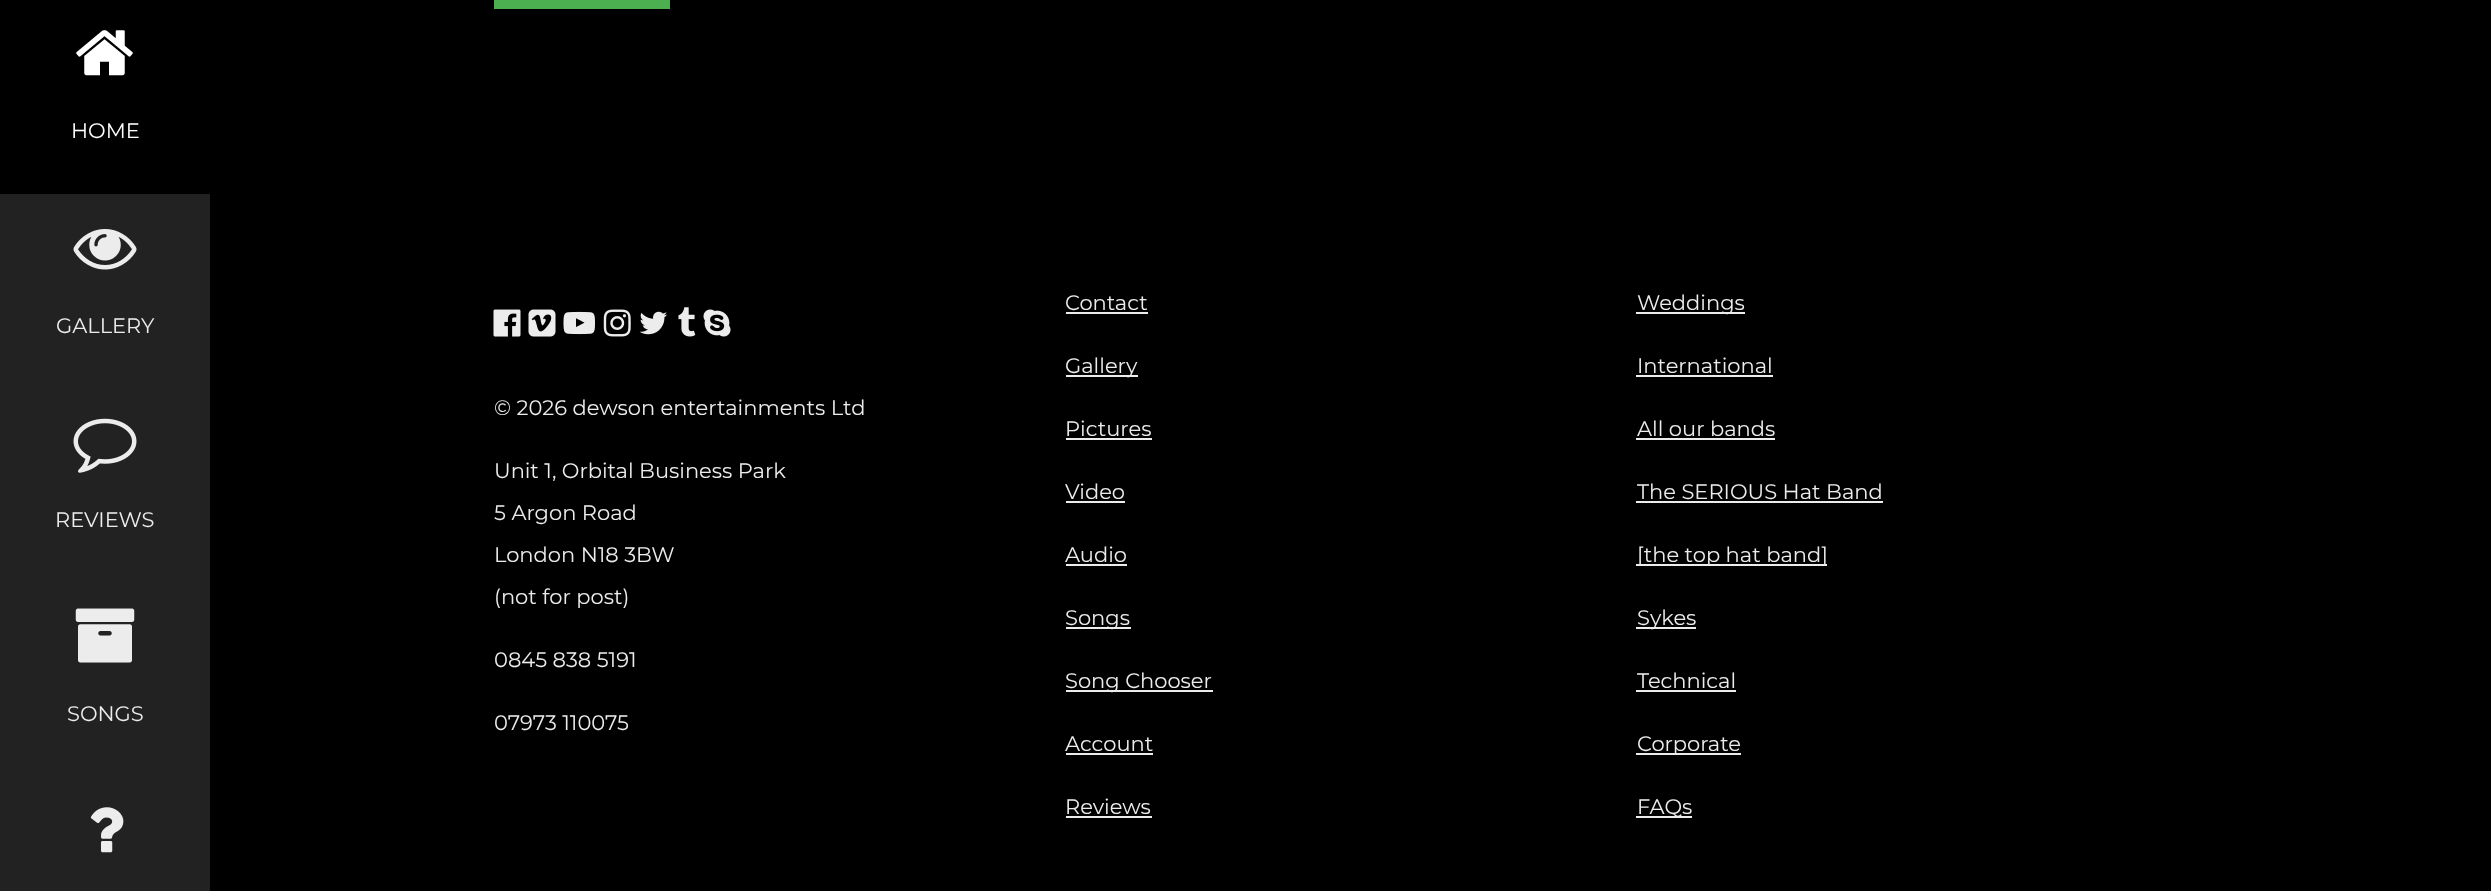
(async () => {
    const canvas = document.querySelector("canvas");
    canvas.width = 2491;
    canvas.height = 891;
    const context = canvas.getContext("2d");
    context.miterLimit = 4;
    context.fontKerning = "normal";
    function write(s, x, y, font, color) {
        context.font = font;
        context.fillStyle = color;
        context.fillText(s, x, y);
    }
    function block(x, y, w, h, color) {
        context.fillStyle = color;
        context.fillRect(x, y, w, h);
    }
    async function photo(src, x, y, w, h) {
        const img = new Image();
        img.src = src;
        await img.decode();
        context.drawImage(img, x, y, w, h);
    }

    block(0, 0, 2491, 891, "rgb(0, 0, 0)");
    block(0, 194, 210, 697, "rgb(34, 34, 34)");
    await photo("media/1.png", 76, 30, 57, 46);
    write("HOME", 71, 138, "100 21px Montserrat", "rgb(255, 255, 255)");
    await photo("media/2.png", 73, 229, 64, 41);
    write("GALLERY", 56, 333, "100 21px Montserrat", "rgb(236, 236, 236)");
    await photo("media/3.png", 73, 418, 64, 55);
    write("REVIEWS", 55, 527, "100 21px Montserrat", "rgb(236, 236, 236)");
    await photo("media/4.png", 75, 608, 60, 55);
    write("SONGS", 67, 721, "100 21px Montserrat", "rgb(236, 236, 236)");
    await photo("media/5.png", 90, 807, 34, 46);
    block(494, 0, 176, 9, "rgb(76, 175, 80)");
    await photo("media/6.png", 493, 309, 28, 28);
    await photo("media/7.png", 528, 309, 28, 28);
    await photo("media/8.png", 563, 311, 32, 24);
    await photo("media/9.png", 603, 309, 28, 28);
    await photo("media/10.png", 639, 311, 29, 24);
    await photo("media/11.png", 678, 307, 18, 30);
    await photo("media/12.png", 703, 309, 28, 28);
    write("© 2026 dewson entertainments Ltd", 494, 415, "100 21px Montserrat", "rgb(236, 236, 236)");
    write("Unit 1, Orbital Business Park", 494, 478, "100 21px Montserrat", "rgb(236, 236, 236)");
    write("5 Argon Road", 494, 520, "100 21px Montserrat", "rgb(236, 236, 236)");
    write("London N18 3BW", 494, 562, "100 21px Montserrat", "rgb(236, 236, 236)");
    write("(not for post)", 494, 604, "100 21px Montserrat", "rgb(236, 236, 236)");
    write("0845 838 5191", 494, 667, "100 21px Montserrat", "rgb(236, 236, 236)");
    write("07973 110075", 494, 730, "100 21px Montserrat", "rgb(236, 236, 236)");
    write("Contact", 1065, 310, "100 21px Montserrat", "rgb(236, 236, 236)");
    block(1066, 312, 82, 2, "rgb(236, 236, 236)");
    block(1066, 375, 72, 2, "rgb(236, 236, 236)");
    write("Gallery", 1065, 373, "100 21px Montserrat", "rgb(236, 236, 236)");
    write("Pictures", 1065, 436, "100 21px Montserrat", "rgb(236, 236, 236)");
    block(1066, 438, 86, 2, "rgb(236, 236, 236)");
    write("Video", 1065, 499, "100 21px Montserrat", "rgb(236, 236, 236)");
    block(1066, 501, 59, 2, "rgb(236, 236, 236)");
    write("Audio", 1065, 562, "100 21px Montserrat", "rgb(236, 236, 236)");
    block(1066, 564, 61, 2, "rgb(236, 236, 236)");
    block(1066, 627, 65, 2, "rgb(236, 236, 236)");
    write("Songs", 1065, 625, "100 21px Montserrat", "rgb(236, 236, 236)");
    block(1066, 690, 147, 2, "rgb(236, 236, 236)");
    write("Song Chooser", 1065, 688, "100 21px Montserrat", "rgb(236, 236, 236)");
    write("Account", 1065, 751, "100 21px Montserrat", "rgb(236, 236, 236)");
    block(1066, 753, 87, 2, "rgb(236, 236, 236)");
    write("Reviews", 1065, 814, "100 21px Montserrat", "rgb(236, 236, 236)");
    block(1066, 816, 86, 2, "rgb(236, 236, 236)");
    block(1636, 312, 109, 2, "rgb(236, 236, 236)");
    write("Weddings", 1637, 310, "100 21px Montserrat", "rgb(236, 236, 236)");
    write("International", 1637, 373, "100 21px Montserrat", "rgb(236, 236, 236)");
    block(1636, 375, 137, 2, "rgb(236, 236, 236)");
    write("All our bands", 1637, 436, "100 21px Montserrat", "rgb(236, 236, 236)");
    block(1636, 438, 139, 2, "rgb(236, 236, 236)");
    write("The SERIOUS Hat Band", 1637, 499, "100 21px Montserrat", "rgb(236, 236, 236)");
    block(1636, 501, 247, 2, "rgb(236, 236, 236)");
    block(1636, 564, 191, 2, "rgb(236, 236, 236)");
    write("[the top hat band]", 1637, 562, "100 21px Montserrat", "rgb(236, 236, 236)");
    block(1636, 627, 60, 2, "rgb(236, 236, 236)");
    write("Sykes", 1637, 625, "100 21px Montserrat", "rgb(236, 236, 236)");
    write("Technical", 1637, 688, "100 21px Montserrat", "rgb(236, 236, 236)");
    block(1636, 690, 100, 2, "rgb(236, 236, 236)");
    block(1636, 753, 105, 2, "rgb(236, 236, 236)");
    write("Corporate", 1637, 751, "100 21px Montserrat", "rgb(236, 236, 236)");
    block(1636, 816, 56, 2, "rgb(236, 236, 236)");
    write("FAQs", 1637, 814, "100 21px Montserrat", "rgb(236, 236, 236)");
})();
